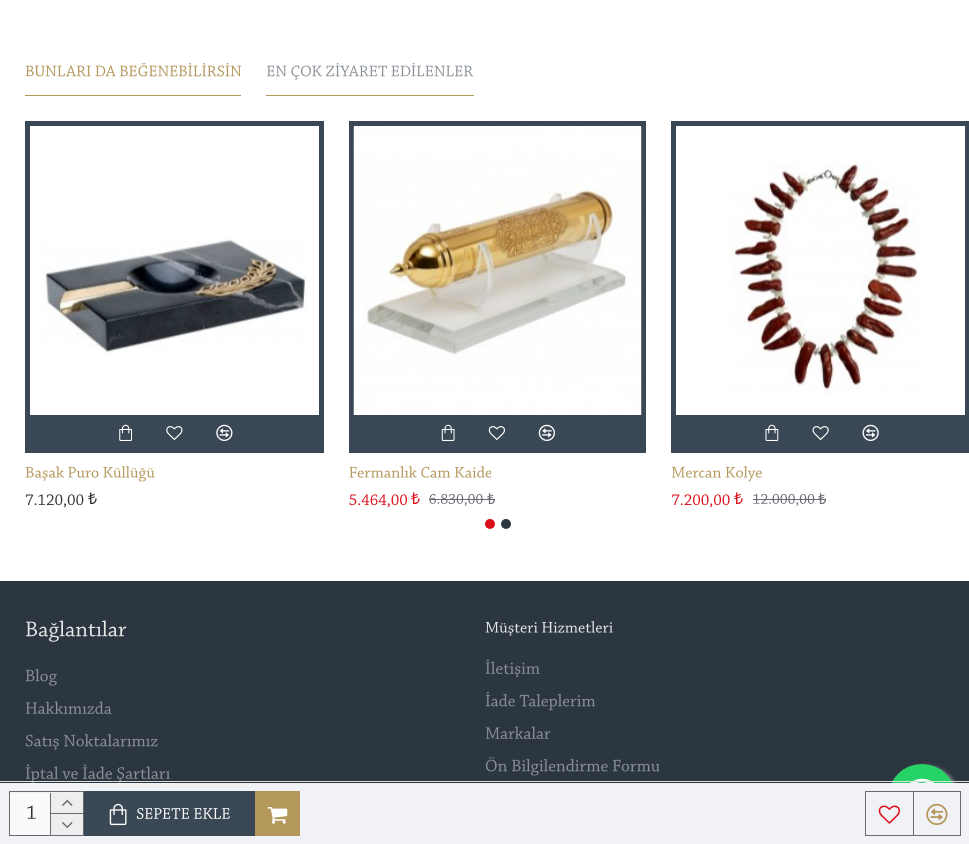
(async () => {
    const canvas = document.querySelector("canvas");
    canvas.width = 969;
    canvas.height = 844;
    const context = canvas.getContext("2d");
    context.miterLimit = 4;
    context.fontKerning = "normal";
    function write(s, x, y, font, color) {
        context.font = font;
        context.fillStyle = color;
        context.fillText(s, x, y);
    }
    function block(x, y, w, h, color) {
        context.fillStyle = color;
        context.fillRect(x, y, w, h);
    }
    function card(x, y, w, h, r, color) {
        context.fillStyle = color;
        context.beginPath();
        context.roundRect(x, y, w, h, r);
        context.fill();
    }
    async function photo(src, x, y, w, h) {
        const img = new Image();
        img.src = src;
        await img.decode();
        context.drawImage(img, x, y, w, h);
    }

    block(0, 0, 969, 844, "rgb(255, 255, 255)");
    block(25, 95, 216, 1, "rgb(180, 151, 90)");
    await photo("media/1.png", 25, 63, 216, 14);
    block(266, 95, 208, 1, "rgb(180, 151, 90)");
    await photo("media/2.png", 267, 63, 207, 17);
    block(25, 121, 299, 5, "rgb(58, 71, 84)");
    block(319, 121, 5, 294, "rgb(58, 71, 84)");
    block(25, 121, 5, 294, "rgb(58, 71, 84)");
    await photo("media/3.png", 42, 238, 265, 116);
    block(25, 415, 299, 38, "rgb(58, 71, 84)");
    await photo("media/4.png", 119, 424, 13, 17);
    await photo("media/5.png", 166, 426, 17, 14);
    await photo("media/6.png", 216, 424, 17, 17);
    await photo("media/7.png", 25, 466, 130, 16);
    await photo("media/8.png", 25, 494, 59, 14);
    write("₺", 88, 504, "16px Noto Sans", "rgb(51, 51, 51)");
    block(349, 121, 297, 5, "rgb(58, 71, 84)");
    block(641, 121, 5, 294, "rgb(58, 71, 84)");
    block(349, 121, 5, 294, "rgb(58, 71, 84)");
    await photo("media/9.png", 353, 127, 289, 288);
    block(349, 415, 297, 38, "rgb(58, 71, 84)");
    await photo("media/10.png", 441, 424, 14, 17);
    await photo("media/11.png", 488, 426, 17, 14);
    await photo("media/12.png", 538, 424, 17, 17);
    await photo("media/13.png", 349, 466, 142, 12);
    await photo("media/14.png", 349, 494, 59, 14);
    write("₺", 411, 504, "16px Noto Sans", "rgb(221, 14, 28)");
    await photo("media/15.png", 429, 493, 54, 13);
    write("₺", 487, 504, "15px Noto Sans", "rgb(105, 105, 115)");
    block(429, 499, 66, 1, "rgb(105, 105, 115)");
    block(671, 121, 298, 5, "rgb(58, 71, 84)");
    block(965, 121, 4, 294, "rgb(58, 71, 84)");
    block(671, 121, 5, 294, "rgb(58, 71, 84)");
    await photo("media/16.png", 731, 163, 187, 232);
    block(671, 415, 298, 38, "rgb(58, 71, 84)");
    await photo("media/17.png", 765, 424, 14, 17);
    await photo("media/18.png", 812, 426, 17, 14);
    await photo("media/19.png", 862, 424, 17, 17);
    await photo("media/20.png", 672, 466, 90, 16);
    await photo("media/21.png", 672, 494, 58, 14);
    write("₺", 734, 504, "16px Noto Sans", "rgb(221, 14, 28)");
    await photo("media/22.png", 753, 493, 62, 13);
    write("₺", 818, 504, "15px Noto Sans", "rgb(105, 105, 115)");
    block(753, 499, 73, 1, "rgb(105, 105, 115)");
    context.fillStyle = "rgb(221, 14, 28)";
    context.beginPath();
    context.arc(490, 524, 5, 0, Math.PI * 2);
    context.fill();
    context.fillStyle = "rgb(44, 54, 64)";
    context.beginPath();
    context.arc(506, 524, 5, 0, Math.PI * 2);
    context.fill();
    block(0, 581, 969, 202, "rgb(44, 54, 64)");
    await photo("media/23.png", 26, 620, 101, 22);
    await photo("media/24.png", 25, 669, 32, 17);
    await photo("media/25.png", 25, 701, 87, 13);
    await photo("media/26.png", 25, 734, 133, 16);
    await photo("media/27.png", 25, 764, 145, 19);
    await photo("media/28.png", 485, 621, 128, 15);
    await photo("media/29.png", 485, 659, 55, 19);
    await photo("media/30.png", 485, 691, 111, 20);
    await photo("media/31.png", 485, 726, 66, 13);
    await photo("media/32.png", 485, 757, 175, 19);
    context.fillStyle = "rgb(153, 153, 153)";
    context.filter = "blur(2px)";
    context.beginPath();
    context.roundRect(890, 766, 69, 69, 34.5);
    context.fill();
    context.filter = "none";
    card(888, 764, 68, 69, 34, "rgb(37, 211, 102)");
    block(0, 783, 969, 61, "rgb(240, 242, 245)");
    await photo("media/41.png", 909, 778, 25, 5);
    block(0, 781, 969, 1, "rgb(221, 221, 221)");
    context.strokeStyle = "rgb(105, 105, 115)";
    context.strokeRect(9.5, 791.5, 74, 44);
    block(10, 793, 40, 42, "rgb(250, 250, 250)");
    await photo("media/33.png", 27, 805, 9, 14);
    block(50, 793, 1, 42, "rgb(105, 105, 115)");
    block(51, 793, 32, 20, "rgb(238, 238, 238)");
    block(51, 813, 32, 1, "rgb(105, 105, 115)");
    await photo("media/34.png", 62, 799, 11, 7);
    block(51, 814, 32, 21, "rgb(238, 238, 238)");
    await photo("media/35.png", 62, 822, 11, 6);
    block(84, 791, 171, 45, "rgb(58, 71, 84)");
    await photo("media/36.png", 109, 803, 18, 23);
    await photo("media/37.png", 136, 808, 94, 11);
    block(255, 791, 45, 45, "rgb(180, 151, 90)");
    await photo("media/38.png", 267, 807, 21, 17);
    context.strokeRect(865.5, 791.5, 48, 44);
    await photo("media/39.png", 878, 805, 22, 19);
    context.strokeRect(913.5, 791.5, 47, 44);
    await photo("media/40.png", 926, 803, 22, 23);
})();
